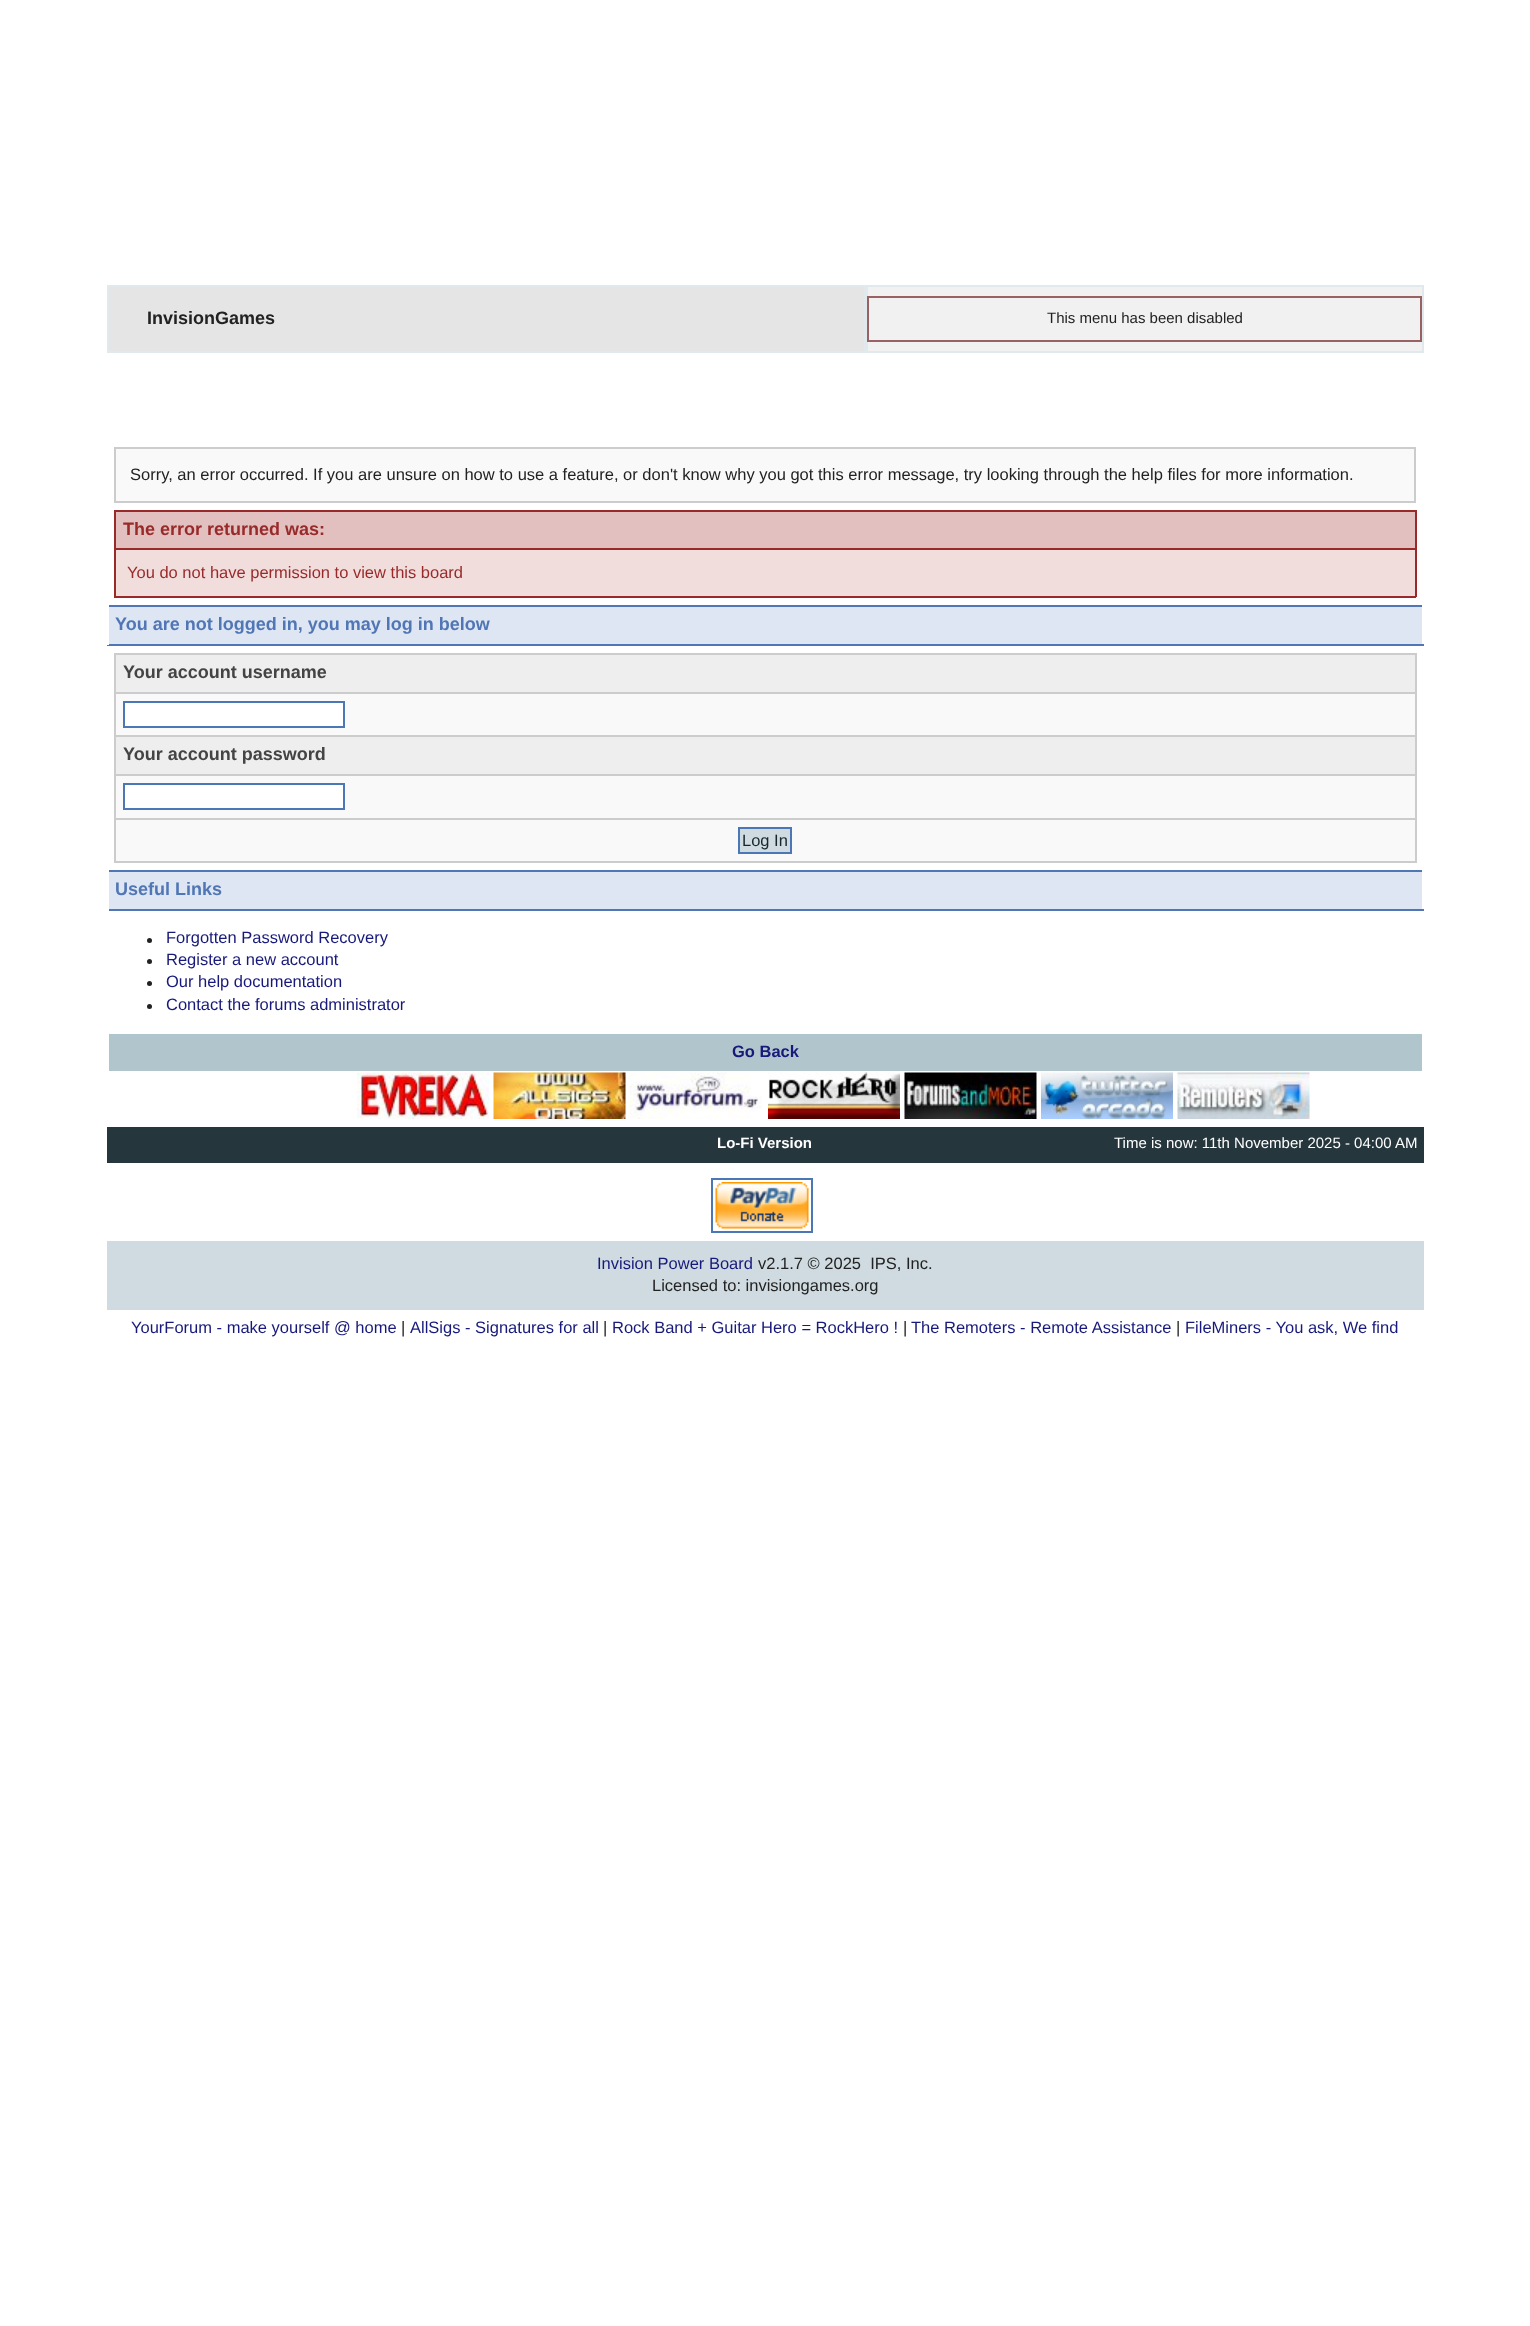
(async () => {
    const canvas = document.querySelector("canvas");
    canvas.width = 1530;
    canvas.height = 2326;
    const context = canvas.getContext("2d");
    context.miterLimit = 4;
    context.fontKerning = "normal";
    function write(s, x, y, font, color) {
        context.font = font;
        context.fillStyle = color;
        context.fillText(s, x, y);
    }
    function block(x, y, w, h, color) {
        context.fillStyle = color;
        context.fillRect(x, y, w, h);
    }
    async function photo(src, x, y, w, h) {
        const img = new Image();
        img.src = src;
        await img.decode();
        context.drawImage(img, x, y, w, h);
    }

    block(0, 0, 1530, 2326, "rgb(255, 255, 255)");
    context.fillStyle = "rgb(229, 229, 229)";
    context.beginPath();
    context.rect(108, 286, 757, 66);
    context.fill();
    context.strokeStyle = "rgb(225, 233, 236)";
    context.lineWidth = 2;
    context.stroke();
    write("InvisionGames", 147, 324, "bold 18px Liberation Sans", "rgb(34, 34, 34)");
    context.fillStyle = "rgb(241, 241, 241)";
    context.beginPath();
    context.rect(867, 286, 556, 66);
    context.fill();
    context.stroke();
    context.strokeStyle = "rgb(152, 98, 101)";
    context.strokeRect(868, 297, 553, 44);
    write("This menu has been disabled", 1047, 323, "15px Liberation Sans", "rgb(34, 34, 34)");
    context.fillStyle = "rgb(249, 249, 249)";
    context.beginPath();
    context.rect(115, 448, 1300, 54);
    context.fill();
    context.strokeStyle = "rgb(204, 204, 204)";
    context.stroke();
    write("Sorry, an error occurred. If you are unsure on how to use a feature, or don't know why you got this error message, try looking through the help files for more information.", 130, 480, "16.5px Liberation Sans", "rgb(34, 34, 34)");
    block(116, 550, 1299, 46, "rgb(242, 221, 221)");
    block(1415, 510, 2, 87, "rgb(153, 42, 42)");
    block(114, 596, 1302, 2, "rgb(153, 42, 42)");
    block(114, 510, 2, 87, "rgb(153, 42, 42)");
    block(116, 512, 1299, 36, "rgb(227, 192, 192)");
    block(116, 510, 1299, 2, "rgb(153, 42, 42)");
    block(116, 548, 1299, 2, "rgb(153, 42, 42)");
    write("The error returned was:", 123, 535, "bold 18px Liberation Sans", "rgb(153, 42, 42)");
    write("You do not have permission to view this board", 127, 578, "16.5px Liberation Sans", "rgb(153, 42, 42)");
    block(109, 607, 1313, 37, "rgb(221, 230, 242)");
    block(107, 605, 1317, 2, "rgb(81, 118, 181)");
    block(1422, 605, 2, 2, "rgb(255, 255, 255)");
    block(107, 644, 1317, 2, "rgb(81, 118, 181)");
    block(107, 605, 2, 40, "rgb(255, 255, 255)");
    write("You are not logged in, you may log in below", 115, 630, "bold 18px Liberation Sans", "rgb(81, 118, 181)");
    block(116, 694, 1299, 167, "rgb(249, 249, 249)");
    block(1415, 653, 2, 210, "rgb(204, 204, 204)");
    block(114, 861, 1302, 2, "rgb(204, 204, 204)");
    block(114, 653, 2, 210, "rgb(204, 204, 204)");
    block(116, 655, 1299, 37, "rgb(238, 238, 238)");
    block(116, 653, 1299, 2, "rgb(204, 204, 204)");
    block(116, 692, 1299, 2, "rgb(204, 204, 204)");
    write("Your account username", 123, 678, "bold 18px Liberation Sans", "rgb(68, 68, 68)");
    context.fillStyle = "rgb(255, 255, 255)";
    context.beginPath();
    context.rect(124, 702, 220, 25);
    context.fill();
    context.strokeStyle = "rgb(76, 119, 182)";
    context.stroke();
    block(116, 737, 1299, 37, "rgb(238, 238, 238)");
    block(116, 735, 1299, 2, "rgb(204, 204, 204)");
    block(116, 774, 1299, 2, "rgb(204, 204, 204)");
    write("Your account password", 123, 760, "bold 18px Liberation Sans", "rgb(68, 68, 68)");
    context.fillStyle = "rgb(255, 255, 255)";
    context.beginPath();
    context.rect(124, 784, 220, 25);
    context.fill();
    context.stroke();
    block(116, 818, 1299, 2, "rgb(204, 204, 204)");
    context.fillStyle = "rgb(207, 219, 224)";
    context.beginPath();
    context.rect(739, 828, 52, 25);
    context.fill();
    context.stroke();
    write("Log In", 742, 846, "16.5px Liberation Sans", "rgb(22, 40, 44)");
    block(109, 872, 1313, 37, "rgb(221, 230, 242)");
    block(107, 870, 1317, 2, "rgb(81, 118, 181)");
    block(1422, 870, 2, 2, "rgb(255, 255, 255)");
    block(107, 909, 1317, 2, "rgb(81, 118, 181)");
    block(107, 870, 2, 41, "rgb(255, 255, 255)");
    write("Useful Links", 115, 895, "bold 18px Liberation Sans", "rgb(81, 118, 181)");
    context.fillStyle = "rgb(34, 34, 34)";
    context.beginPath();
    context.arc(149.5, 940.5, 2.5, 0, Math.PI * 2);
    context.fill();
    write("Forgotten Password Recovery", 166, 943, "16.5px Liberation Sans", "rgb(23, 25, 123)");
    context.fillStyle = "rgb(34, 34, 34)";
    context.beginPath();
    context.arc(149.5, 961.5, 2.5, 0, Math.PI * 2);
    context.fill();
    write("Register a new account", 166, 965, "16.5px Liberation Sans", "rgb(23, 25, 123)");
    context.fillStyle = "rgb(34, 34, 34)";
    context.beginPath();
    context.arc(149.5, 983.5, 2.5, 0, Math.PI * 2);
    context.fill();
    write("Our help documentation", 166, 987, "16.5px Liberation Sans", "rgb(23, 25, 123)");
    context.fillStyle = "rgb(34, 34, 34)";
    context.beginPath();
    context.arc(149.5, 1006.5, 2.5, 0, Math.PI * 2);
    context.fill();
    write("Contact the forums administrator", 166, 1010, "16.5px Liberation Sans", "rgb(23, 25, 123)");
    block(109, 1034, 1313, 37, "rgb(177, 197, 205)");
    write("Go Back", 732, 1057, "bold 16.5px Liberation Sans", "rgb(23, 25, 123)");
    await photo("media/1.png", 357, 1072, 132, 47);
    await photo("media/2.png", 493, 1072, 133, 47);
    await photo("media/3.png", 630, 1072, 132, 47);
    await photo("media/4.png", 768, 1072, 132, 47);
    await photo("media/5.png", 904, 1072, 133, 47);
    await photo("media/6.png", 1041, 1072, 132, 47);
    await photo("media/7.png", 1177, 1072, 133, 47);
    block(107, 1127, 1317, 36, "rgb(38, 54, 61)");
    write("Lo-Fi Version", 717, 1148, "bold 15px Liberation Sans", "rgb(255, 255, 255)");
    write("Time is now: 11th November 2025 - 04:00 AM", 1114, 1148, "15px Liberation Sans", "rgb(255, 255, 255)");
    context.strokeRect(712, 1179, 100, 53);
    await photo("media/8.png", 715, 1182, 94, 47);
    block(107, 1241, 1317, 69, "rgb(207, 219, 224)");
    write("Invision Power Board", 597, 1269, "16.5px Liberation Sans", "rgb(23, 25, 123)");
    write("v2.1.7 © 2025  IPS, Inc.", 758, 1269, "16.5px Liberation Sans", "rgb(34, 34, 34)");
    write("Licensed to: invisiongames.org", 652, 1291, "16.5px Liberation Sans", "rgb(34, 34, 34)");
    write("YourForum - make yourself @ home", 131, 1333, "16.5px Liberation Sans", "rgb(23, 25, 123)");
    write("|", 401, 1333, "16.5px Liberation Sans", "rgb(34, 34, 34)");
    write("AllSigs - Signatures for all", 410, 1333, "16.5px Liberation Sans", "rgb(23, 25, 123)");
    write("|", 603, 1333, "16.5px Liberation Sans", "rgb(34, 34, 34)");
    write("Rock Band + Guitar Hero = RockHero !", 612, 1333, "16.5px Liberation Sans", "rgb(23, 25, 123)");
    write("|", 903, 1333, "16.5px Liberation Sans", "rgb(34, 34, 34)");
    write("The Remoters - Remote Assistance", 911, 1333, "16.5px Liberation Sans", "rgb(23, 25, 123)");
    write("|", 1176, 1333, "16.5px Liberation Sans", "rgb(34, 34, 34)");
    write("FileMiners - You ask, We find", 1185, 1333, "16.5px Liberation Sans", "rgb(23, 25, 123)");
})();
